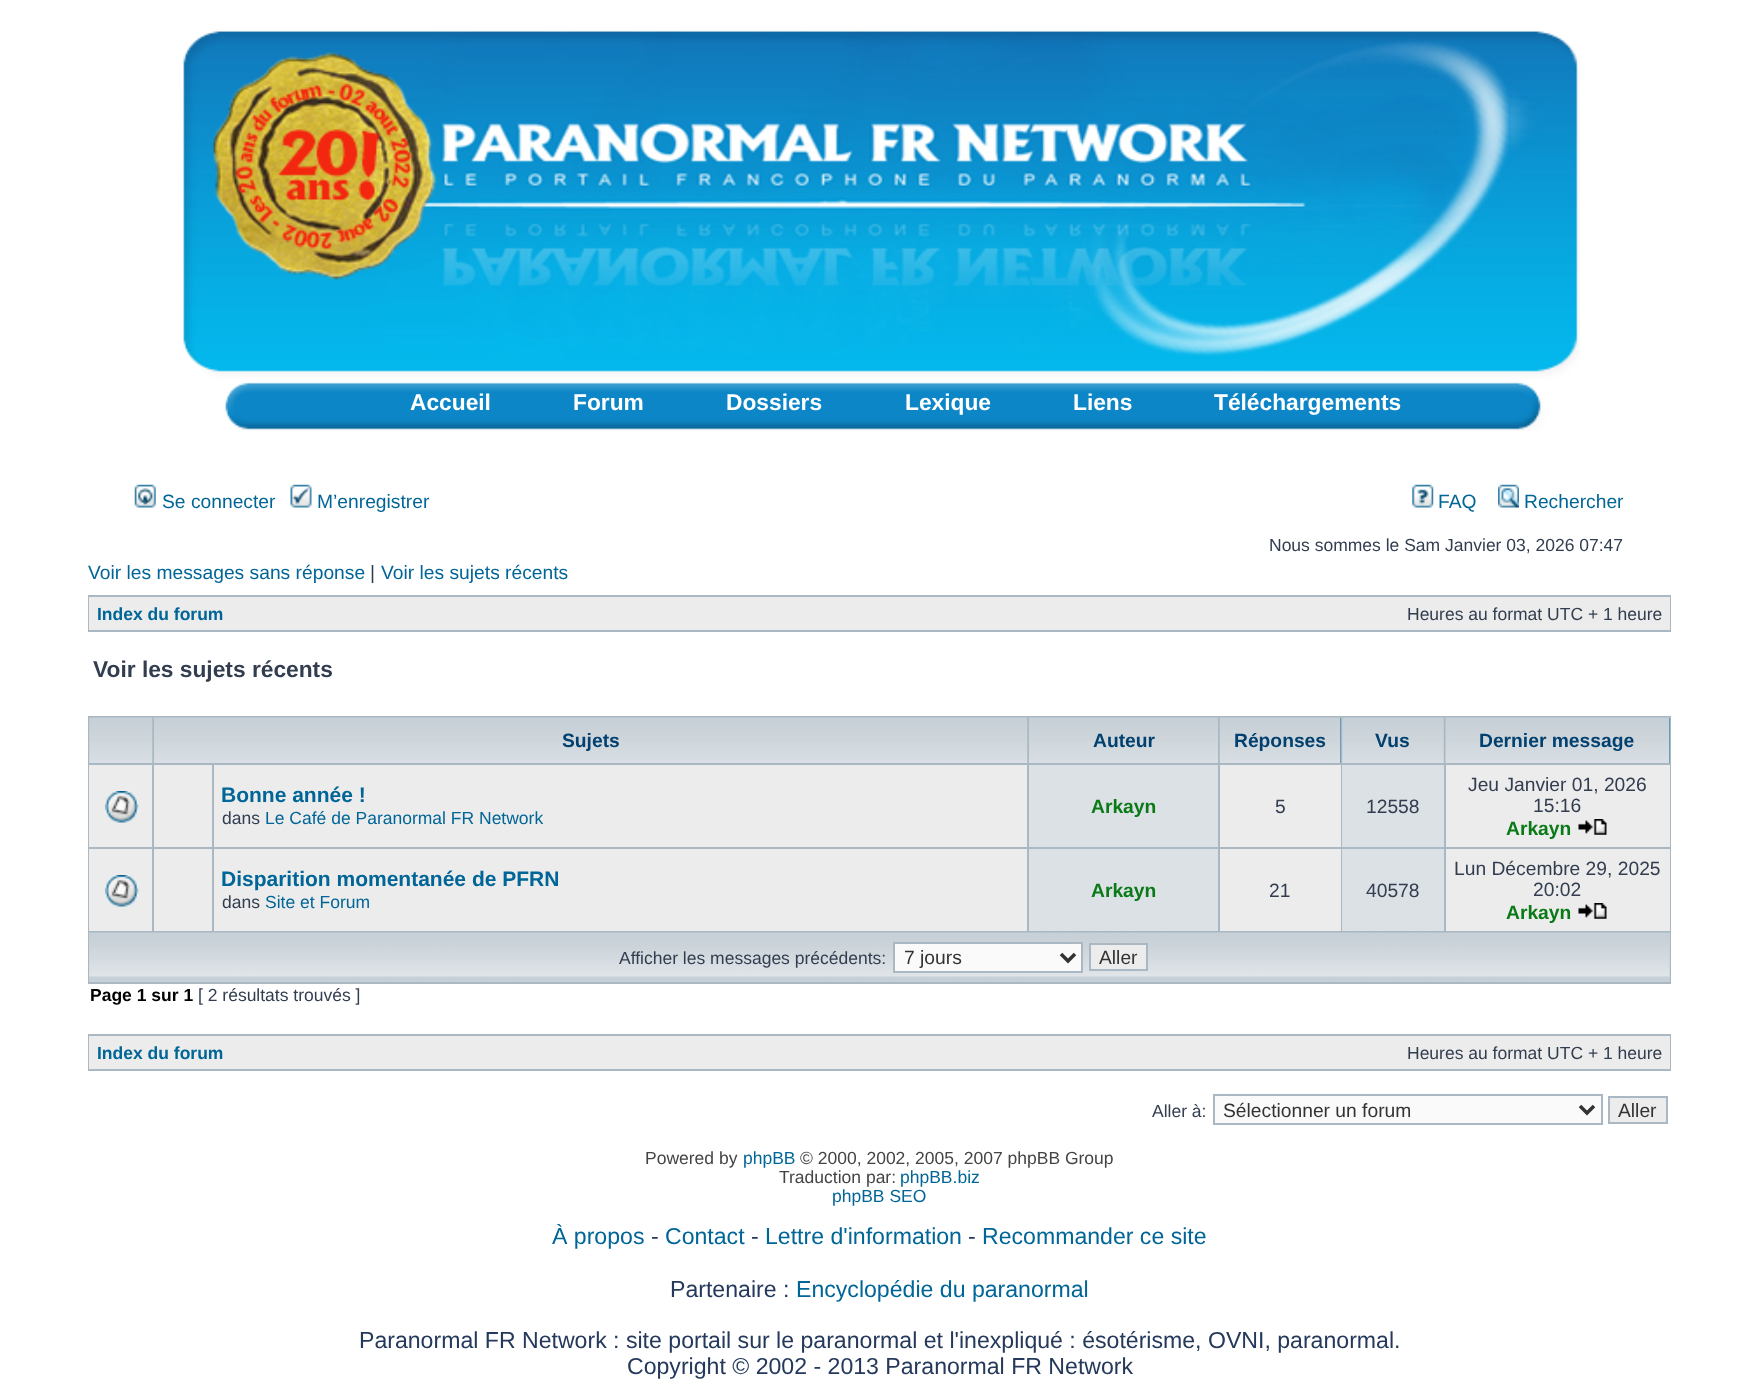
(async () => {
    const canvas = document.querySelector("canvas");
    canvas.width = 1758;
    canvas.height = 1399;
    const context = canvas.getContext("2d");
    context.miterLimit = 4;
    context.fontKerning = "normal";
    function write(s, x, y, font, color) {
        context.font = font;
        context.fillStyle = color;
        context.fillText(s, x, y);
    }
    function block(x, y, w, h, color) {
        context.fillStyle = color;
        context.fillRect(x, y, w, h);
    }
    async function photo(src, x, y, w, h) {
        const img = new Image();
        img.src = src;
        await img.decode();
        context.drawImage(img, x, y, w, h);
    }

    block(0, 0, 1758, 1399, "rgb(255, 255, 255)");
    await photo("media/1.png", 183, 31, 1397, 400);
    write("Accueil", 410, 410, "bold 22.75px Liberation Sans", "rgb(255, 255, 255)");
    write("Forum", 573, 410, "bold 22.75px Liberation Sans", "rgb(255, 255, 255)");
    write("Dossiers", 726, 410, "bold 22.75px Liberation Sans", "rgb(255, 255, 255)");
    write("Lexique", 905, 410, "bold 22.75px Liberation Sans", "rgb(255, 255, 255)");
    write("Liens", 1073, 410, "bold 22.75px Liberation Sans", "rgb(255, 255, 255)");
    write("Téléchargements", 1214, 410, "bold 22.75px Liberation Sans", "rgb(255, 255, 255)");
    await photo("media/2.png", 134, 484, 22, 24);
    write("Se connecter", 162, 508, "19.25px Liberation Sans", "rgb(0, 101, 151)");
    await photo("media/3.png", 290, 484, 22, 24);
    write("M’enregistrer", 317, 508, "19.25px Liberation Sans", "rgb(0, 101, 151)");
    await photo("media/4.png", 1412, 484, 22, 24);
    write("FAQ", 1438, 508, "19.25px Liberation Sans", "rgb(0, 101, 151)");
    await photo("media/5.png", 1498, 484, 21, 24);
    write("Rechercher", 1524, 508, "19.25px Liberation Sans", "rgb(0, 101, 151)");
    write("Nous sommes le Sam Janvier 03, 2026 07:47", 1269, 551, "17.5px Liberation Sans", "rgb(50, 61, 79)");
    write("Voir les messages sans réponse", 88, 579, "19.25px Liberation Sans", "rgb(0, 101, 151)");
    write("|", 370, 579, "19.25px Liberation Sans", "rgb(50, 61, 79)");
    write("Voir les sujets récents", 381, 579, "19.25px Liberation Sans", "rgb(0, 101, 151)");
    block(88, 595, 1583, 37, "rgb(169, 184, 194)");
    block(89, 597, 1581, 33, "rgb(236, 236, 236)");
    write("Index du forum", 97, 620, "bold 17.5px Liberation Sans", "rgb(0, 101, 151)");
    write("Heures au format UTC + 1 heure", 1407, 620, "17.5px Liberation Sans", "rgb(50, 61, 79)");
    write("Voir les sujets récents", 93, 677, "bold 22.75px Liberation Sans", "rgb(50, 61, 79)");
    block(88, 716, 1583, 268, "rgb(169, 184, 194)");
    await photo("media/6.png", 89, 717, 64, 46);
    await photo("media/7.png", 154, 717, 874, 46);
    write("Sujets", 562, 747, "bold 19.25px Liberation Sans", "rgb(1, 64, 111)");
    await photo("media/8.png", 1029, 717, 189, 46);
    write("Auteur", 1093, 747, "bold 19.25px Liberation Sans", "rgb(1, 64, 111)");
    block(1340, 718, 1, 45, "rgb(0, 102, 153)");
    await photo("media/9.png", 1219, 717, 122, 46);
    write("Réponses", 1234, 747, "bold 19.25px Liberation Sans", "rgb(1, 64, 111)");
    await photo("media/10.png", 1342, 717, 102, 46);
    write("Vus", 1375, 747, "bold 19.25px Liberation Sans", "rgb(1, 64, 111)");
    block(1669, 718, 1, 45, "rgb(0, 102, 153)");
    await photo("media/11.png", 1445, 717, 225, 46);
    write("Dernier message", 1479, 747, "bold 19.25px Liberation Sans", "rgb(1, 64, 111)");
    block(89, 765, 63, 82, "rgb(236, 236, 236)");
    await photo("media/12.png", 105, 791, 34, 32);
    block(154, 765, 58, 82, "rgb(236, 236, 236)");
    block(214, 765, 813, 82, "rgb(236, 236, 236)");
    write("Bonne année !", 221, 802, "bold 21px Liberation Sans", "rgb(0, 101, 151)");
    write("dans", 222, 824, "17.5px Liberation Sans", "rgb(50, 61, 79)");
    write("Le Café de Paranormal FR Network", 265, 824, "17.5px Liberation Sans", "rgb(0, 101, 151)");
    block(1029, 765, 189, 82, "rgb(220, 225, 229)");
    write("Arkayn", 1091, 813, "bold 19.25px Liberation Sans", "rgb(10, 122, 23)");
    block(1220, 765, 121, 82, "rgb(236, 236, 236)");
    write("5", 1275, 813, "19.25px Liberation Sans", "rgb(50, 61, 79)");
    block(1342, 765, 102, 82, "rgb(220, 225, 229)");
    write("12558", 1366, 813, "19.25px Liberation Sans", "rgb(50, 61, 79)");
    block(1446, 765, 224, 82, "rgb(236, 236, 236)");
    write("Jeu Janvier 01, 2026", 1468, 791, "19.25px Liberation Sans", "rgb(50, 61, 79)");
    write("15:16", 1533, 812, "19.25px Liberation Sans", "rgb(50, 61, 79)");
    write("Arkayn", 1506, 835, "bold 19.25px Liberation Sans", "rgb(10, 122, 23)");
    await photo("media/13.png", 1578, 819, 29, 16);
    block(89, 849, 63, 82, "rgb(236, 236, 236)");
    await photo("media/12.png", 105, 875, 34, 32);
    block(154, 849, 58, 82, "rgb(236, 236, 236)");
    block(214, 849, 813, 82, "rgb(236, 236, 236)");
    write("Disparition momentanée de PFRN", 221, 886, "bold 21px Liberation Sans", "rgb(0, 101, 151)");
    write("dans", 222, 908, "17.5px Liberation Sans", "rgb(50, 61, 79)");
    write("Site et Forum", 265, 908, "17.5px Liberation Sans", "rgb(0, 101, 151)");
    block(1029, 849, 189, 82, "rgb(220, 225, 229)");
    write("Arkayn", 1091, 897, "bold 19.25px Liberation Sans", "rgb(10, 122, 23)");
    block(1220, 849, 121, 82, "rgb(236, 236, 236)");
    write("21", 1269, 897, "19.25px Liberation Sans", "rgb(50, 61, 79)");
    block(1342, 849, 102, 82, "rgb(220, 225, 229)");
    write("40578", 1366, 897, "19.25px Liberation Sans", "rgb(50, 61, 79)");
    block(1446, 849, 224, 82, "rgb(236, 236, 236)");
    write("Lun Décembre 29, 2025", 1454, 875, "19.25px Liberation Sans", "rgb(50, 61, 79)");
    write("20:02", 1533, 896, "19.25px Liberation Sans", "rgb(50, 61, 79)");
    write("Arkayn", 1506, 919, "bold 19.25px Liberation Sans", "rgb(10, 122, 23)");
    await photo("media/13.png", 1578, 903, 29, 16);
    block(89, 933, 1581, 49, "rgb(199, 208, 215)");
    await photo("media/14.png", 89, 932, 1581, 45);
    write("Afficher les messages précédents:", 619, 964, "17.5px Liberation Sans", "rgb(50, 61, 79)");
    context.fillStyle = "rgb(250, 250, 250)";
    context.beginPath();
    context.rect(894, 943, 188, 29);
    context.fill();
    context.strokeStyle = "rgb(169, 184, 194)";
    context.lineWidth = 2;
    context.stroke();
    context.beginPath();
    context.moveTo(1061, 954);
    context.lineTo(1068, 961);
    context.lineTo(1075, 954);
    context.strokeStyle = "rgb(51, 51, 51)";
    context.lineWidth = 3.5;
    context.stroke();
    write("7 jours", 904, 964, "19.25px Liberation Sans", "rgb(51, 51, 51)");
    context.fillStyle = "rgb(236, 236, 236)";
    context.beginPath();
    context.rect(1090, 944, 57, 26);
    context.fill();
    context.strokeStyle = "rgb(169, 184, 194)";
    context.lineWidth = 2;
    context.stroke();
    write("Aller", 1099, 964, "19.25px Liberation Sans", "rgb(51, 51, 51)");
    write("Page 1 sur 1", 90, 1001, "bold 17.5px Liberation Sans", "rgb(0, 0, 0)");
    write("[ 2 résultats trouvés ]", 198, 1001, "17.5px Liberation Sans", "rgb(50, 61, 79)");
    block(88, 1034, 1583, 37, "rgb(169, 184, 194)");
    block(89, 1036, 1581, 33, "rgb(236, 236, 236)");
    write("Index du forum", 97, 1059, "bold 17.5px Liberation Sans", "rgb(0, 101, 151)");
    write("Heures au format UTC + 1 heure", 1407, 1059, "17.5px Liberation Sans", "rgb(50, 61, 79)");
    write("Aller à:", 1152, 1117, "17.5px Liberation Sans", "rgb(50, 61, 79)");
    context.fillStyle = "rgb(250, 250, 250)";
    context.beginPath();
    context.rect(1214, 1095, 388, 29);
    context.fill();
    context.stroke();
    context.beginPath();
    context.moveTo(1580, 1106);
    context.lineTo(1587, 1113);
    context.lineTo(1594, 1106);
    context.strokeStyle = "rgb(51, 51, 51)";
    context.lineWidth = 3.5;
    context.stroke();
    write("Sélectionner un forum", 1223, 1117, "19.25px Liberation Sans", "rgb(51, 51, 51)");
    context.fillStyle = "rgb(236, 236, 236)";
    context.beginPath();
    context.rect(1609, 1097, 58, 26);
    context.fill();
    context.strokeStyle = "rgb(169, 184, 194)";
    context.lineWidth = 2;
    context.stroke();
    write("Aller", 1618, 1117, "19.25px Liberation Sans", "rgb(51, 51, 51)");
    write("Powered by", 645, 1164, "17.5px Liberation Sans", "rgb(68, 68, 68)");
    write("phpBB", 743, 1164, "17.5px Liberation Sans", "rgb(0, 101, 151)");
    write("© 2000, 2002, 2005, 2007 phpBB Group", 800, 1164, "17.5px Liberation Sans", "rgb(68, 68, 68)");
    write("Traduction par:", 779, 1183, "17.5px Liberation Sans", "rgb(68, 68, 68)");
    write("phpBB.biz", 900, 1183, "17.5px Liberation Sans", "rgb(0, 101, 151)");
    write("phpBB SEO", 832, 1202, "17.5px Liberation Sans", "rgb(0, 101, 151)");
    write("À propos", 552, 1244, "23.1px Liberation Sans", "rgb(0, 101, 151)");
    write("-", 651, 1244, "23.1px Liberation Sans", "rgb(36, 57, 91)");
    write("Contact", 665, 1244, "23.1px Liberation Sans", "rgb(0, 101, 151)");
    write("-", 751, 1244, "23.1px Liberation Sans", "rgb(36, 57, 91)");
    write("Lettre d'information", 765, 1244, "23.1px Liberation Sans", "rgb(0, 101, 151)");
    write("-", 968, 1244, "23.1px Liberation Sans", "rgb(36, 57, 91)");
    write("Recommander ce site", 982, 1244, "23.1px Liberation Sans", "rgb(0, 101, 151)");
    write("Partenaire :", 670, 1297, "23.1px Liberation Sans", "rgb(36, 57, 91)");
    write("Encyclopédie du paranormal", 796, 1297, "23.1px Liberation Sans", "rgb(0, 101, 151)");
    write("Paranormal FR Network : site portail sur le paranormal et l'inexpliqué : ésotérisme, OVNI, paranormal.", 359, 1348, "23.1px Liberation Sans", "rgb(36, 57, 91)");
    write("Copyright © 2002 - 2013 Paranormal FR Network", 627, 1374, "23.1px Liberation Sans", "rgb(36, 57, 91)");
})();
